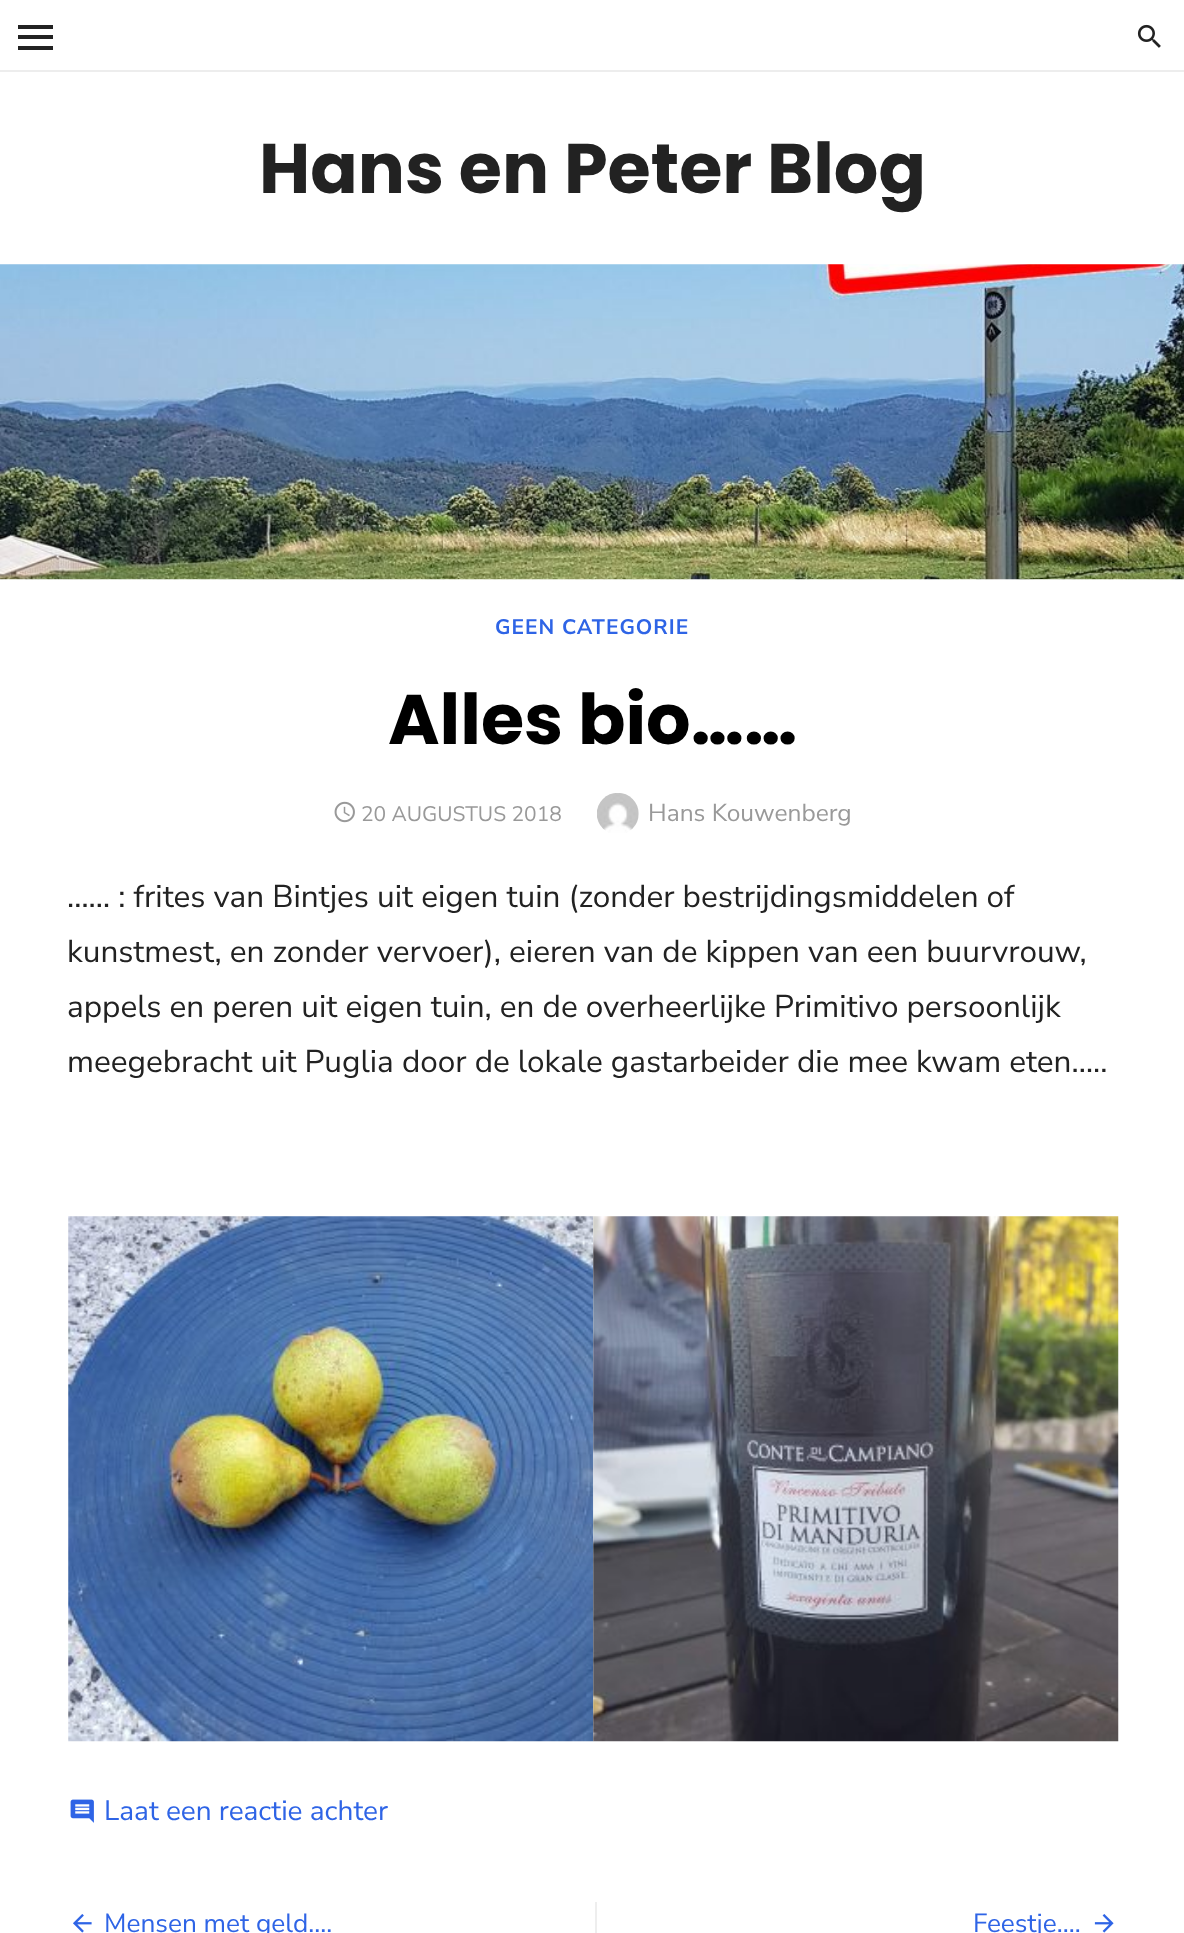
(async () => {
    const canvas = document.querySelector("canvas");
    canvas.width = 1184;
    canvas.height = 1933;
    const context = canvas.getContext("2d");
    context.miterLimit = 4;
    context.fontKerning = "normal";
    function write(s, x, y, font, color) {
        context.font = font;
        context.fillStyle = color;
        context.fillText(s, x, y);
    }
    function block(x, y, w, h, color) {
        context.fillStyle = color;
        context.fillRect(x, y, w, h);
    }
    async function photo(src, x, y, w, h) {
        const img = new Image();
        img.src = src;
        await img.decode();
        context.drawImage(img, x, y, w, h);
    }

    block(0, 0, 1184, 1933, "rgb(255, 255, 255)");
    block(0, 70, 1184, 2, "rgb(237, 237, 237)");
    block(18, 35, 35, 4, "rgb(34, 34, 34)");
    block(18, 25, 35, 4, "rgb(34, 34, 34)");
    block(18, 46, 35, 4, "rgb(34, 34, 34)");
    await photo("media/1.png", 1137, 24, 24, 24);
    write("Hans en Peter Blog", 259, 193, "bold 70px Poppins", "rgb(34, 34, 34)");
    await photo("media/2.png", 0, 264, 1184, 316);
    context.letterSpacing = "1px";
    write("GEEN CATEGORIE", 495, 634, "bold 21px Nunito Sans", "rgb(46, 100, 230)");
    context.letterSpacing = "0px";
    write("Alles bio……", 388, 744, "bold 70px Poppins", "rgb(0, 0, 0)");
    await photo("media/3.png", 334, 801, 21, 22);
    write("20 AUGUSTUS 2018", 361, 821, "21px Nunito Sans", "rgb(153, 153, 153)");
    await photo("media/4.png", 597, 793, 42, 40);
    write("Hans Kouwenberg", 648, 821, "24.5px Nunito Sans", "rgb(153, 153, 153)");
    write("…… : frites van Bintjes uit eigen tuin (zonder bestrijdingsmiddelen of", 67, 907, "31.5px Nunito Sans", "rgb(34, 34, 34)");
    write("kunstmest, en zonder vervoer), eieren van de kippen van een buurvrouw,", 67, 962, "31.5px Nunito Sans", "rgb(34, 34, 34)");
    write("appels en peren uit eigen tuin, en de overheerlijke Primitivo persoonlijk", 67, 1017, "31.5px Nunito Sans", "rgb(34, 34, 34)");
    write("meegebracht uit Puglia door de lokale gastarbeider die mee kwam eten…..", 67, 1072, "31.5px Nunito Sans", "rgb(34, 34, 34)");
    await photo("media/5.png", 68, 1216, 526, 526);
    await photo("media/6.png", 593, 1216, 526, 526);
    await photo("media/7.png", 70, 1799, 24, 24);
    write("Laat een reactie achter", 104, 1820, "28px Nunito Sans", "rgb(46, 100, 230)");
    block(595, 1902, 2, 31, "rgb(238, 238, 238)");
    await photo("media/8.png", 73, 1914, 19, 19);
    write("Mensen met geld….", 104, 1932, "26.25px Nunito Sans", "rgb(46, 100, 230)");
    write("Feestje….", 973, 1932, "26.25px Nunito Sans", "rgb(46, 100, 230)");
    await photo("media/9.png", 1094, 1914, 20, 19);
})();
